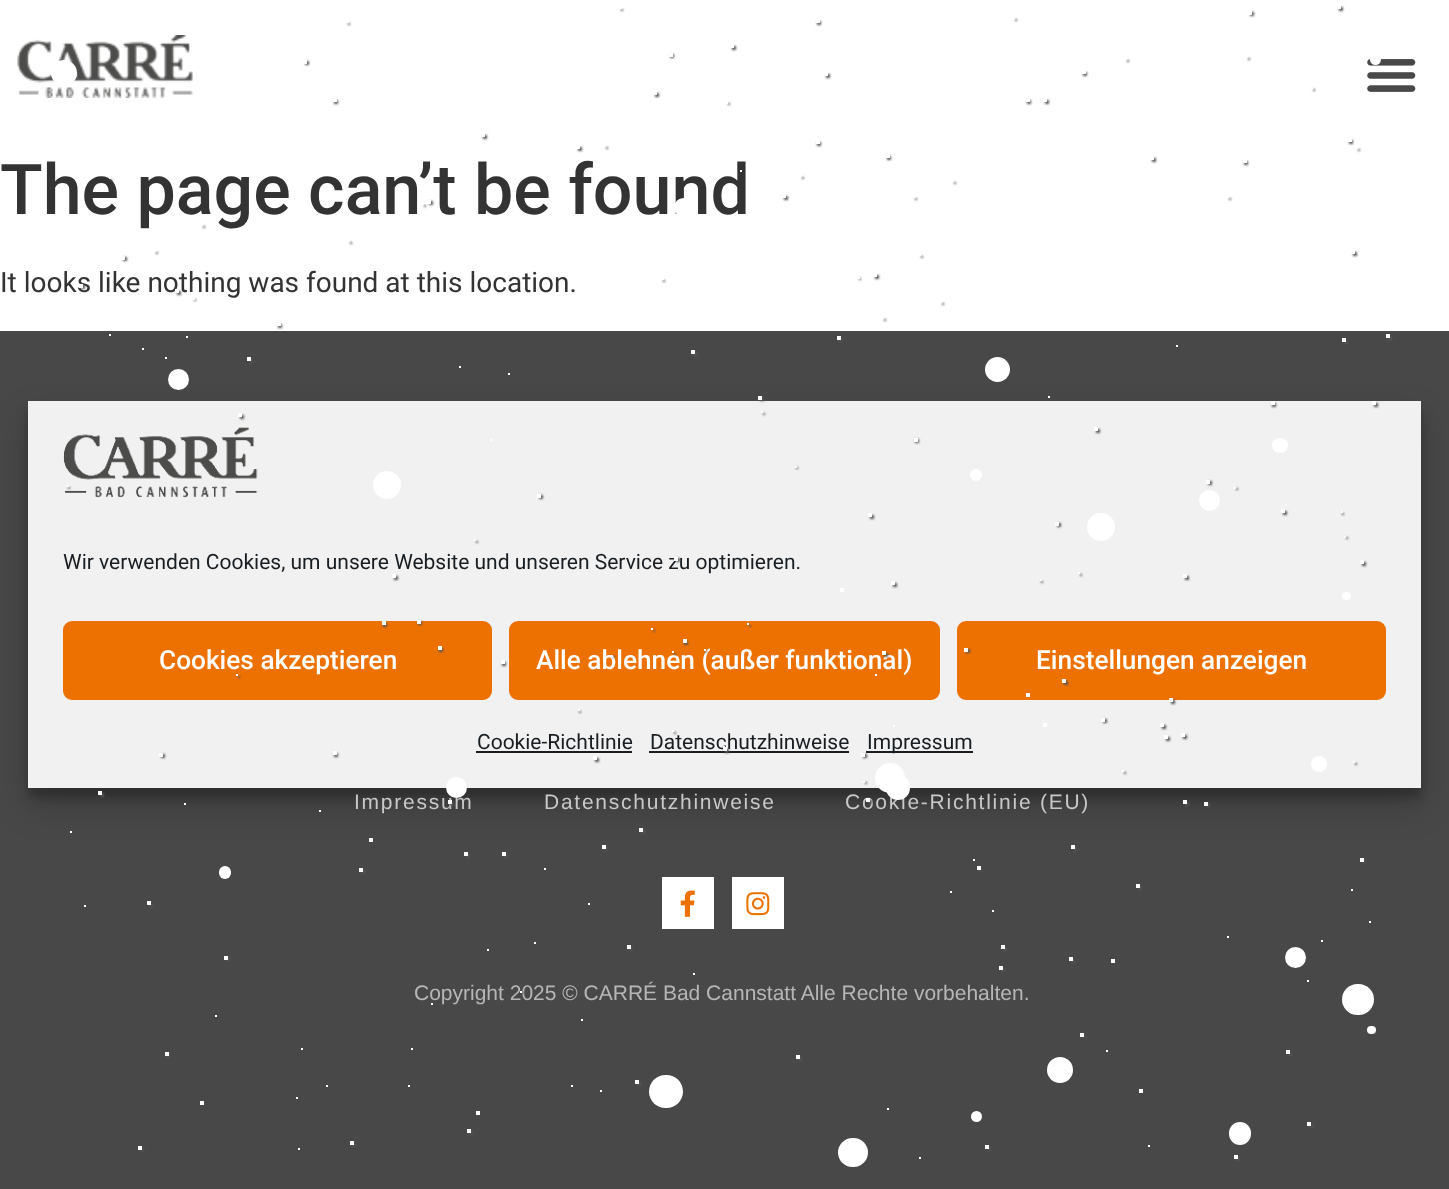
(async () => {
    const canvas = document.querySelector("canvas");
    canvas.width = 1449;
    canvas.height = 1189;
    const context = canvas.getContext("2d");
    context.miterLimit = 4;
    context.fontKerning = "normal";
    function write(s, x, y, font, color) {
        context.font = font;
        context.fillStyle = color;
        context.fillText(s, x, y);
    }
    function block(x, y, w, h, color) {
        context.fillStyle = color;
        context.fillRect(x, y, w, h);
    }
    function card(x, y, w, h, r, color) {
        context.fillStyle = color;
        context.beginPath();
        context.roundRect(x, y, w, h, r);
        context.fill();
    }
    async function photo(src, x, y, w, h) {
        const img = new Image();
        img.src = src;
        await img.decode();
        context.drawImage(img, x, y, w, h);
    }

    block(0, 0, 1449, 1189, "rgb(255, 255, 255)");
    context.fillStyle = "rgb(85, 85, 85)";
    context.filter = "blur(1px)";
    context.beginPath();
    context.rect(348, 23, 2, 2);
    context.fill();
    context.filter = "none";
    block(347, 21, 2, 2, "rgb(255, 255, 255)");
    context.fillStyle = "rgb(85, 85, 85)";
    context.filter = "blur(1px)";
    context.beginPath();
    context.rect(621, 9, 2, 2);
    context.fill();
    context.filter = "none";
    block(620, 7, 2, 2, "rgb(255, 255, 255)");
    context.fillStyle = "rgb(85, 85, 85)";
    context.filter = "blur(1px)";
    context.beginPath();
    context.rect(817, 21, 4, 4);
    context.fill();
    context.filter = "none";
    block(816, 19, 4, 4, "rgb(255, 255, 255)");
    context.fillStyle = "rgb(85, 85, 85)";
    context.filter = "blur(1px)";
    context.beginPath();
    context.rect(1015, 19, 2, 2);
    context.fill();
    context.filter = "none";
    block(1013, 18, 2, 2, "rgb(255, 255, 255)");
    context.fillStyle = "rgb(85, 85, 85)";
    context.filter = "blur(1px)";
    context.beginPath();
    context.rect(1250, 12, 4, 4);
    context.fill();
    context.filter = "none";
    block(1248, 11, 4, 4, "rgb(255, 255, 255)");
    context.fillStyle = "rgb(85, 85, 85)";
    context.filter = "blur(1px)";
    context.beginPath();
    context.rect(1339, 7, 4, 4);
    context.fill();
    context.filter = "none";
    block(1337, 5, 4, 4, "rgb(255, 255, 255)");
    await photo("media/1.png", 17, 35, 176, 63);
    await photo("media/2.png", 1367, 59, 49, 33);
    context.fillStyle = "rgb(85, 85, 85)";
    context.filter = "blur(1px)";
    context.beginPath();
    context.rect(732, 46, 4, 4);
    context.fill();
    context.filter = "none";
    block(730, 44, 4, 4, "rgb(255, 255, 255)");
    context.beginPath();
    context.arc(64, 73, 13, 0, Math.PI * 2);
    context.fill();
    context.fillStyle = "rgb(85, 85, 85)";
    context.filter = "blur(1px)";
    context.beginPath();
    context.rect(305, 61, 4, 4);
    context.fill();
    context.filter = "none";
    block(303, 60, 4, 4, "rgb(255, 255, 255)");
    context.fillStyle = "rgb(85, 85, 85)";
    context.filter = "blur(1px)";
    context.beginPath();
    context.rect(670, 54, 4, 4);
    context.fill();
    context.filter = "none";
    block(669, 53, 4, 4, "rgb(255, 255, 255)");
    context.fillStyle = "rgb(85, 85, 85)";
    context.filter = "blur(1px)";
    context.beginPath();
    context.rect(826, 74, 4, 4);
    context.fill();
    context.filter = "none";
    block(824, 72, 4, 4, "rgb(255, 255, 255)");
    context.fillStyle = "rgb(85, 85, 85)";
    context.filter = "blur(1px)";
    context.beginPath();
    context.rect(1083, 72, 4, 4);
    context.fill();
    context.filter = "none";
    block(1082, 70, 4, 4, "rgb(255, 255, 255)");
    context.fillStyle = "rgb(85, 85, 85)";
    context.filter = "blur(1px)";
    context.beginPath();
    context.rect(1127, 60, 2, 2);
    context.fill();
    context.filter = "none";
    block(1125, 58, 2, 2, "rgb(255, 255, 255)");
    context.fillStyle = "rgb(85, 85, 85)";
    context.filter = "blur(1px)";
    context.beginPath();
    context.rect(1248, 58, 2, 2);
    context.fill();
    context.filter = "none";
    block(1246, 56, 2, 2, "rgb(255, 255, 255)");
    context.beginPath();
    context.arc(1375.5, 59.5, 5.5, 0, Math.PI * 2);
    context.fill();
    context.fillStyle = "rgb(85, 85, 85)";
    context.filter = "blur(1px)";
    context.beginPath();
    context.rect(334, 100, 4, 4);
    context.fill();
    context.filter = "none";
    block(333, 98, 4, 4, "rgb(255, 255, 255)");
    context.fillStyle = "rgb(85, 85, 85)";
    context.filter = "blur(1px)";
    context.beginPath();
    context.rect(655, 93, 4, 4);
    context.fill();
    context.filter = "none";
    block(653, 91, 4, 4, "rgb(255, 255, 255)");
    context.fillStyle = "rgb(85, 85, 85)";
    context.filter = "blur(1px)";
    context.beginPath();
    context.rect(728, 103, 2, 2);
    context.fill();
    context.filter = "none";
    block(726, 102, 2, 2, "rgb(255, 255, 255)");
    context.fillStyle = "rgb(85, 85, 85)";
    context.filter = "blur(1px)";
    context.beginPath();
    context.rect(1027, 100, 4, 4);
    context.fill();
    context.filter = "none";
    block(1026, 98, 4, 4, "rgb(255, 255, 255)");
    context.fillStyle = "rgb(85, 85, 85)";
    context.filter = "blur(1px)";
    context.beginPath();
    context.rect(1045, 100, 4, 4);
    context.fill();
    context.filter = "none";
    block(1043, 98, 4, 4, "rgb(255, 255, 255)");
    context.fillStyle = "rgb(85, 85, 85)";
    context.filter = "blur(1px)";
    context.beginPath();
    context.rect(1313, 89, 2, 2);
    context.fill();
    context.filter = "none";
    block(1311, 88, 2, 2, "rgb(255, 255, 255)");
    context.fillStyle = "rgb(85, 85, 85)";
    context.filter = "blur(1px)";
    context.beginPath();
    context.rect(483, 135, 4, 4);
    context.fill();
    context.filter = "none";
    block(481, 133, 4, 4, "rgb(255, 255, 255)");
    context.fillStyle = "rgb(85, 85, 85)";
    context.filter = "blur(1px)";
    context.beginPath();
    context.rect(578, 147, 4, 4);
    context.fill();
    context.filter = "none";
    block(576, 145, 4, 4, "rgb(255, 255, 255)");
    context.fillStyle = "rgb(85, 85, 85)";
    context.filter = "blur(1px)";
    context.beginPath();
    context.rect(606, 147, 2, 2);
    context.fill();
    context.filter = "none";
    block(604, 145, 2, 2, "rgb(255, 255, 255)");
    context.fillStyle = "rgb(85, 85, 85)";
    context.filter = "blur(1px)";
    context.beginPath();
    context.rect(817, 142, 4, 4);
    context.fill();
    context.filter = "none";
    block(816, 140, 4, 4, "rgb(255, 255, 255)");
    context.fillStyle = "rgb(85, 85, 85)";
    context.filter = "blur(1px)";
    context.beginPath();
    context.rect(1349, 140, 4, 4);
    context.fill();
    context.filter = "none";
    block(1348, 138, 4, 4, "rgb(255, 255, 255)");
    context.fillStyle = "rgb(85, 85, 85)";
    context.filter = "blur(1px)";
    context.beginPath();
    context.rect(1358, 149, 2, 2);
    context.fill();
    context.filter = "none";
    block(1356, 147, 2, 2, "rgb(255, 255, 255)");
    write("The page can’t be found", 0, 214, "500 70px Roboto", "rgb(51, 51, 51)");
    write("It looks like nothing was found at this location.", 0, 292, "28px Roboto", "rgb(51, 51, 51)");
    context.fillStyle = "rgb(85, 85, 85)";
    context.filter = "blur(1px)";
    context.beginPath();
    context.rect(887, 156, 4, 4);
    context.fill();
    context.filter = "none";
    block(886, 154, 4, 4, "rgb(255, 255, 255)");
    context.fillStyle = "rgb(85, 85, 85)";
    context.filter = "blur(1px)";
    context.beginPath();
    context.rect(1152, 158, 4, 4);
    context.fill();
    context.filter = "none";
    block(1150, 156, 4, 4, "rgb(255, 255, 255)");
    context.fillStyle = "rgb(85, 85, 85)";
    context.filter = "blur(1px)";
    context.beginPath();
    context.rect(1244, 161, 4, 4);
    context.fill();
    context.filter = "none";
    block(1243, 159, 4, 4, "rgb(255, 255, 255)");
    block(740, 170, 2, 2, "rgb(255, 255, 255)");
    context.fillStyle = "rgb(85, 85, 85)";
    context.filter = "blur(1px)";
    context.beginPath();
    context.rect(110, 179, 2, 2);
    context.fill();
    context.filter = "none";
    block(109, 177, 2, 2, "rgb(255, 255, 255)");
    context.fillStyle = "rgb(85, 85, 85)";
    context.filter = "blur(1px)";
    context.beginPath();
    context.rect(802, 177, 2, 2);
    context.fill();
    context.filter = "none";
    block(800, 175, 2, 2, "rgb(255, 255, 255)");
    context.fillStyle = "rgb(85, 85, 85)";
    context.filter = "blur(1px)";
    context.beginPath();
    context.rect(954, 182, 2, 2);
    context.fill();
    context.filter = "none";
    block(952, 180, 2, 2, "rgb(255, 255, 255)");
    context.fillStyle = "rgb(85, 85, 85)";
    context.filter = "blur(1px)";
    context.beginPath();
    context.rect(429, 201, 4, 4);
    context.fill();
    context.filter = "none";
    context.filter = "blur(1px)";
    context.beginPath();
    context.rect(424, 205, 2, 2);
    context.fill();
    context.filter = "none";
    block(427, 200, 4, 4, "rgb(255, 255, 255)");
    context.beginPath();
    context.arc(683.5, 207.5, 9.5, 0, Math.PI * 2);
    context.fill();
    context.fillStyle = "rgb(85, 85, 85)";
    context.filter = "blur(1px)";
    context.beginPath();
    context.rect(784, 196, 4, 4);
    context.fill();
    context.filter = "none";
    block(782, 194, 4, 4, "rgb(255, 255, 255)");
    context.fillStyle = "rgb(85, 85, 85)";
    context.filter = "blur(1px)";
    context.beginPath();
    context.rect(915, 198, 2, 2);
    context.fill();
    context.filter = "none";
    block(914, 196, 2, 2, "rgb(255, 255, 255)");
    context.fillStyle = "rgb(85, 85, 85)";
    context.filter = "blur(1px)";
    context.beginPath();
    context.rect(1229, 198, 2, 2);
    context.fill();
    context.filter = "none";
    block(1227, 196, 2, 2, "rgb(255, 255, 255)");
    block(228, 206, 4, 1, "rgb(255, 255, 255)");
    block(422, 203, 2, 2, "rgb(255, 255, 255)");
    context.fillStyle = "rgb(85, 85, 85)";
    context.filter = "blur(1px)";
    context.beginPath();
    context.rect(770, 215, 4, 4);
    context.fill();
    context.filter = "none";
    context.fillStyle = "rgb(255, 255, 255)";
    context.beginPath();
    context.arc(760.5, 221.5, 16.5, 0, Math.PI * 2);
    context.fill();
    context.fillStyle = "rgb(85, 85, 85)";
    context.filter = "blur(1px)";
    context.beginPath();
    context.rect(203, 226, 2, 2);
    context.fill();
    context.filter = "none";
    block(201, 224, 2, 2, "rgb(255, 255, 255)");
    context.fillStyle = "rgb(85, 85, 85)";
    context.filter = "blur(1px)";
    context.beginPath();
    context.rect(350, 242, 2, 2);
    context.fill();
    context.filter = "none";
    block(348, 240, 2, 2, "rgb(255, 255, 255)");
    context.fillStyle = "rgb(85, 85, 85)";
    context.filter = "blur(1px)";
    context.beginPath();
    context.rect(123, 257, 4, 4);
    context.fill();
    context.filter = "none";
    block(121, 256, 4, 4, "rgb(255, 255, 255)");
    context.fillStyle = "rgb(85, 85, 85)";
    context.filter = "blur(1px)";
    context.beginPath();
    context.rect(156, 252, 2, 2);
    context.fill();
    context.filter = "none";
    block(154, 250, 2, 2, "rgb(255, 255, 255)");
    context.fillStyle = "rgb(85, 85, 85)";
    context.filter = "blur(1px)";
    context.beginPath();
    context.rect(921, 256, 2, 2);
    context.fill();
    context.filter = "none";
    block(919, 254, 2, 2, "rgb(255, 255, 255)");
    context.fillStyle = "rgb(85, 85, 85)";
    context.filter = "blur(1px)";
    context.beginPath();
    context.rect(1353, 252, 4, 4);
    context.fill();
    context.filter = "none";
    block(1351, 250, 4, 4, "rgb(255, 255, 255)");
    context.fillStyle = "rgb(85, 85, 85)";
    context.filter = "blur(1px)";
    context.beginPath();
    context.rect(81, 285, 4, 4);
    context.fill();
    context.filter = "none";
    block(79, 284, 4, 4, "rgb(255, 255, 255)");
    context.fillStyle = "rgb(85, 85, 85)";
    context.filter = "blur(1px)";
    context.beginPath();
    context.rect(177, 291, 4, 4);
    context.fill();
    context.filter = "none";
    block(175, 289, 4, 4, "rgb(255, 255, 255)");
    block(345, 289, 4, 3, "rgb(255, 255, 255)");
    card(455, 270, 9, 8, 4, "rgb(255, 255, 255)");
    context.fillStyle = "rgb(85, 85, 85)";
    context.filter = "blur(1px)";
    context.beginPath();
    context.rect(663, 280, 2, 2);
    context.fill();
    context.filter = "none";
    block(662, 278, 2, 2, "rgb(255, 255, 255)");
    context.fillStyle = "rgb(85, 85, 85)";
    context.filter = "blur(1px)";
    context.beginPath();
    context.rect(859, 278, 2, 2);
    context.fill();
    context.filter = "none";
    block(858, 277, 2, 2, "rgb(255, 255, 255)");
    context.fillStyle = "rgb(85, 85, 85)";
    context.filter = "blur(1px)";
    context.beginPath();
    context.rect(875, 275, 4, 4);
    context.fill();
    context.filter = "none";
    block(873, 273, 4, 4, "rgb(255, 255, 255)");
    context.fillStyle = "rgb(85, 85, 85)";
    context.filter = "blur(1px)";
    context.beginPath();
    context.rect(194, 299, 2, 2);
    context.fill();
    context.filter = "none";
    block(193, 298, 2, 2, "rgb(255, 255, 255)");
    context.fillStyle = "rgb(85, 85, 85)";
    context.filter = "blur(1px)";
    context.beginPath();
    context.rect(942, 303, 2, 2);
    context.fill();
    context.filter = "none";
    block(940, 301, 2, 2, "rgb(255, 255, 255)");
    block(0, 331, 1449, 858, "rgb(73, 72, 72)");
    context.fillStyle = "rgb(85, 85, 85)";
    context.filter = "blur(1px)";
    context.beginPath();
    context.rect(278, 324, 4, 4);
    context.fill();
    context.filter = "none";
    block(277, 322, 4, 4, "rgb(255, 255, 255)");
    context.fillStyle = "rgb(85, 85, 85)";
    context.filter = "blur(1px)";
    context.beginPath();
    context.rect(884, 319, 2, 2);
    context.fill();
    context.filter = "none";
    block(882, 317, 2, 2, "rgb(255, 255, 255)");
    block(109, 334, 2, 2, "rgb(255, 255, 255)");
    block(186, 336, 2, 2, "rgb(255, 255, 255)");
    context.fillStyle = "rgb(85, 85, 85)";
    context.filter = "blur(1px)";
    context.beginPath();
    context.rect(838, 338, 4, 4);
    context.fill();
    context.filter = "none";
    block(837, 336, 4, 4, "rgb(255, 255, 255)");
    block(1176, 345, 2, 2, "rgb(255, 255, 255)");
    context.fillStyle = "rgb(85, 85, 85)";
    context.filter = "blur(1px)";
    context.beginPath();
    context.rect(1344, 340, 4, 4);
    context.fill();
    context.filter = "none";
    block(1342, 338, 4, 4, "rgb(255, 255, 255)");
    context.fillStyle = "rgb(85, 85, 85)";
    context.filter = "blur(1px)";
    context.beginPath();
    context.rect(1388, 336, 4, 4);
    context.fill();
    context.filter = "none";
    block(1386, 334, 4, 4, "rgb(255, 255, 255)");
    block(142, 348, 2, 2, "rgb(255, 255, 255)");
    block(165, 357, 2, 2, "rgb(255, 255, 255)");
    context.fillStyle = "rgb(85, 85, 85)";
    context.filter = "blur(1px)";
    context.beginPath();
    context.rect(249, 359, 4, 4);
    context.fill();
    context.filter = "none";
    block(247, 357, 4, 4, "rgb(255, 255, 255)");
    context.fillStyle = "rgba(0, 0, 0, 0.19)";
    context.filter = "blur(17.5px)";
    context.beginPath();
    context.rect(28, 418, 1393, 387);
    context.fill();
    context.filter = "none";
    block(459, 366, 2, 2, "rgb(255, 255, 255)");
    context.fillStyle = "rgb(85, 85, 85)";
    context.filter = "blur(1px)";
    context.beginPath();
    context.rect(693, 352, 4, 4);
    context.fill();
    context.filter = "none";
    block(691, 350, 4, 4, "rgb(255, 255, 255)");
    context.beginPath();
    context.arc(997.5, 369.5, 12.5, 0, Math.PI * 2);
    context.fill();
    context.beginPath();
    context.arc(178.5, 379.5, 10.5, 0, Math.PI * 2);
    context.fill();
    block(508, 373, 2, 2, "rgb(255, 255, 255)");
    context.fillStyle = "rgba(0, 0, 0, 0.23)";
    context.filter = "blur(5px)";
    context.beginPath();
    context.rect(28, 411, 1393, 387);
    context.fill();
    context.filter = "none";
    block(28, 401, 1393, 387, "rgb(241, 241, 241)");
    context.fillStyle = "rgb(85, 85, 85)";
    context.filter = "blur(1px)";
    context.beginPath();
    context.rect(760, 397, 4, 4);
    context.fill();
    context.filter = "none";
    block(758, 396, 4, 4, "rgb(255, 255, 255)");
    block(1048, 396, 2, 2, "rgb(255, 255, 255)");
    context.fillStyle = "rgb(85, 85, 85)";
    context.filter = "blur(1px)";
    context.beginPath();
    context.rect(1272, 403, 4, 4);
    context.fill();
    context.filter = "none";
    block(1271, 401, 4, 4, "rgb(255, 255, 255)");
    context.fillStyle = "rgb(85, 85, 85)";
    context.filter = "blur(1px)";
    context.beginPath();
    context.rect(1374, 403, 4, 4);
    context.fill();
    context.filter = "none";
    block(1372, 401, 4, 4, "rgb(255, 255, 255)");
    context.fillStyle = "rgb(85, 85, 85)";
    context.filter = "blur(1px)";
    context.beginPath();
    context.rect(240, 415, 4, 4);
    context.fill();
    context.filter = "none";
    block(238, 413, 4, 4, "rgb(255, 255, 255)");
    context.fillStyle = "rgb(85, 85, 85)";
    context.filter = "blur(1px)";
    context.beginPath();
    context.rect(763, 413, 2, 2);
    context.fill();
    context.filter = "none";
    block(761, 411, 2, 2, "rgb(255, 255, 255)");
    context.fillStyle = "rgb(85, 85, 85)";
    context.filter = "blur(1px)";
    context.beginPath();
    context.rect(1096, 429, 4, 4);
    context.fill();
    context.filter = "none";
    block(1094, 427, 4, 4, "rgb(255, 255, 255)");
    block(490, 439, 2, 2, "rgb(255, 255, 255)");
    context.fillStyle = "rgb(85, 85, 85)";
    context.filter = "blur(1px)";
    context.beginPath();
    context.rect(915, 439, 4, 4);
    context.fill();
    context.filter = "none";
    block(914, 438, 4, 4, "rgb(255, 255, 255)");
    card(1272, 438, 16, 15, 7.5, "rgb(255, 255, 255)");
    context.fillStyle = "rgb(85, 85, 85)";
    context.filter = "blur(1px)";
    context.beginPath();
    context.rect(796, 467, 2, 2);
    context.fill();
    context.filter = "none";
    block(795, 466, 2, 2, "rgb(255, 255, 255)");
    await photo("media/3.png", 63, 427, 195, 71);
    context.fillStyle = "rgb(85, 85, 85)";
    context.filter = "blur(1px)";
    context.beginPath();
    context.rect(68, 487, 2, 2);
    context.fill();
    context.filter = "none";
    block(67, 485, 2, 2, "rgb(255, 255, 255)");
    context.beginPath();
    context.arc(387, 485, 14, 0, Math.PI * 2);
    context.fill();
    context.beginPath();
    context.arc(976, 475, 6, 0, Math.PI * 2);
    context.fill();
    context.fillStyle = "rgb(85, 85, 85)";
    context.filter = "blur(1px)";
    context.beginPath();
    context.rect(1208, 481, 4, 4);
    context.fill();
    context.filter = "none";
    block(1206, 480, 4, 4, "rgb(255, 255, 255)");
    context.fillStyle = "rgb(85, 85, 85)";
    context.filter = "blur(1px)";
    context.beginPath();
    context.rect(1236, 488, 2, 2);
    context.fill();
    context.filter = "none";
    block(1234, 487, 2, 2, "rgb(255, 255, 255)");
    context.fillStyle = "rgb(85, 85, 85)";
    context.filter = "blur(1px)";
    context.beginPath();
    context.rect(539, 495, 4, 4);
    context.fill();
    context.filter = "none";
    block(537, 494, 4, 4, "rgb(255, 255, 255)");
    context.fillStyle = "rgb(85, 85, 85)";
    context.filter = "blur(1px)";
    context.beginPath();
    context.rect(1201, 501, 4, 4);
    context.fill();
    context.filter = "none";
    context.fillStyle = "rgb(255, 255, 255)";
    context.beginPath();
    context.arc(1209.5, 500.5, 10.5, 0, Math.PI * 2);
    context.fill();
    context.fillStyle = "rgb(85, 85, 85)";
    context.filter = "blur(1px)";
    context.beginPath();
    context.rect(870, 515, 4, 4);
    context.fill();
    context.filter = "none";
    block(868, 513, 4, 4, "rgb(255, 255, 255)");
    context.fillStyle = "rgb(85, 85, 85)";
    context.filter = "blur(1px)";
    context.beginPath();
    context.rect(1057, 523, 4, 4);
    context.fill();
    context.filter = "none";
    block(1055, 522, 4, 4, "rgb(255, 255, 255)");
    context.beginPath();
    context.arc(1101, 527, 14, 0, Math.PI * 2);
    context.fill();
    context.fillStyle = "rgb(85, 85, 85)";
    context.filter = "blur(1px)";
    context.beginPath();
    context.rect(1283, 511, 4, 4);
    context.fill();
    context.filter = "none";
    block(1281, 509, 4, 4, "rgb(255, 255, 255)");
    context.fillStyle = "rgb(85, 85, 85)";
    context.filter = "blur(1px)";
    context.beginPath();
    context.rect(1342, 513, 2, 2);
    context.fill();
    context.filter = "none";
    block(1341, 511, 2, 2, "rgb(255, 255, 255)");
    context.fillStyle = "rgb(85, 85, 85)";
    context.filter = "blur(1px)";
    context.beginPath();
    context.rect(476, 541, 2, 2);
    context.fill();
    context.filter = "none";
    block(474, 539, 2, 2, "rgb(255, 255, 255)");
    context.fillStyle = "rgb(85, 85, 85)";
    context.filter = "blur(1px)";
    context.beginPath();
    context.rect(1346, 537, 2, 2);
    context.fill();
    context.filter = "none";
    block(1344, 536, 2, 2, "rgb(255, 255, 255)");
    write("Wir verwenden Cookies, um unsere Website und unseren Service zu optimieren.", 63, 569, "21px Roboto", "rgb(25, 30, 35)");
    context.fillStyle = "rgb(237, 113, 0)";
    context.beginPath();
    context.roundRect(64, 622, 427, 77, 8);
    context.fill();
    context.strokeStyle = "rgb(237, 113, 0)";
    context.lineWidth = 2;
    context.stroke();
    write("Cookies akzeptieren", 159, 669, "500 26.25px Roboto", "rgb(255, 255, 255)");
    context.fillStyle = "rgb(237, 113, 0)";
    context.beginPath();
    context.roundRect(510, 622, 429, 77, 8);
    context.fill();
    context.stroke();
    write("Alle ablehnen (außer funktional)", 536, 669, "500 26.25px Roboto", "rgb(255, 255, 255)");
    context.fillStyle = "rgb(237, 113, 0)";
    context.beginPath();
    context.roundRect(958, 622, 427, 77, 8);
    context.fill();
    context.stroke();
    write("Einstellungen anzeigen", 1036, 669, "500 26.25px Roboto", "rgb(255, 255, 255)");
    write("Cookie-Richtlinie", 477, 749, "21px Roboto", "rgb(25, 30, 35)");
    block(476, 751, 156, 2, "rgb(25, 30, 35)");
    write("Datenschutzhinweise", 650, 749, "21px Roboto", "rgb(25, 30, 35)");
    block(649, 751, 200, 2, "rgb(25, 30, 35)");
    block(866, 751, 107, 2, "rgb(25, 30, 35)");
    write("Impressum", 867, 749, "21px Roboto", "rgb(25, 30, 35)");
    context.fillStyle = "rgb(85, 85, 85)";
    context.filter = "blur(1px)";
    context.beginPath();
    context.rect(676, 558, 4, 4);
    context.fill();
    context.filter = "none";
    block(674, 557, 4, 4, "rgb(255, 255, 255)");
    context.fillStyle = "rgb(85, 85, 85)";
    context.filter = "blur(1px)";
    context.beginPath();
    context.rect(1362, 562, 4, 4);
    context.fill();
    context.filter = "none";
    block(1360, 560, 4, 4, "rgb(255, 255, 255)");
    context.fillStyle = "rgb(85, 85, 85)";
    context.filter = "blur(1px)";
    context.beginPath();
    context.rect(394, 576, 4, 4);
    context.fill();
    context.filter = "none";
    block(392, 574, 4, 4, "rgb(255, 255, 255)");
    block(840, 588, 4, 4, "rgb(255, 255, 255)");
    context.fillStyle = "rgb(85, 85, 85)";
    context.filter = "blur(1px)";
    context.beginPath();
    context.rect(893, 583, 4, 4);
    context.fill();
    context.filter = "none";
    block(891, 581, 4, 4, "rgb(255, 255, 255)");
    context.fillStyle = "rgb(85, 85, 85)";
    context.filter = "blur(1px)";
    context.beginPath();
    context.rect(1041, 581, 2, 2);
    context.fill();
    context.filter = "none";
    block(1040, 579, 2, 2, "rgb(255, 255, 255)");
    context.fillStyle = "rgb(85, 85, 85)";
    context.filter = "blur(1px)";
    context.beginPath();
    context.rect(1080, 574, 2, 2);
    context.fill();
    context.filter = "none";
    block(1078, 572, 2, 2, "rgb(255, 255, 255)");
    context.fillStyle = "rgb(85, 85, 85)";
    context.filter = "blur(1px)";
    context.beginPath();
    context.rect(1185, 576, 4, 4);
    context.fill();
    context.filter = "none";
    block(1183, 574, 4, 4, "rgb(255, 255, 255)");
    card(1342, 592, 9, 8, 4, "rgb(255, 255, 255)");
    context.fillStyle = "rgb(85, 85, 85)";
    context.filter = "blur(1px)";
    context.beginPath();
    context.rect(383, 623, 4, 4);
    context.fill();
    context.filter = "none";
    block(382, 621, 4, 4, "rgb(255, 255, 255)");
    context.fillStyle = "rgb(85, 85, 85)";
    context.filter = "blur(1px)";
    context.beginPath();
    context.rect(418, 621, 4, 4);
    context.fill();
    context.filter = "none";
    block(417, 620, 4, 4, "rgb(255, 255, 255)");
    context.fillStyle = "rgb(85, 85, 85)";
    context.filter = "blur(1px)";
    context.beginPath();
    context.rect(653, 630, 2, 2);
    context.fill();
    context.filter = "none";
    block(651, 628, 2, 2, "rgb(255, 255, 255)");
    context.fillStyle = "rgb(85, 85, 85)";
    context.filter = "blur(1px)";
    context.beginPath();
    context.rect(749, 625, 2, 2);
    context.fill();
    context.filter = "none";
    block(747, 623, 2, 2, "rgb(255, 255, 255)");
    context.fillStyle = "rgb(85, 85, 85)";
    context.filter = "blur(1px)";
    context.beginPath();
    context.rect(439, 648, 4, 4);
    context.fill();
    context.filter = "none";
    block(438, 646, 4, 4, "rgb(255, 255, 255)");
    context.fillStyle = "rgb(85, 85, 85)";
    context.filter = "blur(1px)";
    context.beginPath();
    context.rect(613, 656, 2, 2);
    context.fill();
    context.filter = "none";
    block(611, 655, 2, 2, "rgb(255, 255, 255)");
    context.fillStyle = "rgb(85, 85, 85)";
    context.filter = "blur(1px)";
    context.beginPath();
    context.rect(674, 653, 2, 2);
    context.fill();
    context.filter = "none";
    block(672, 651, 2, 2, "rgb(255, 255, 255)");
    context.fillStyle = "rgb(85, 85, 85)";
    context.filter = "blur(1px)";
    context.beginPath();
    context.rect(684, 641, 4, 4);
    context.fill();
    context.filter = "none";
    block(683, 639, 4, 4, "rgb(255, 255, 255)");
    context.fillStyle = "rgb(85, 85, 85)";
    context.filter = "blur(1px)";
    context.beginPath();
    context.rect(705, 651, 2, 2);
    context.fill();
    context.filter = "none";
    block(704, 649, 2, 2, "rgb(255, 255, 255)");
    context.fillStyle = "rgb(85, 85, 85)";
    context.filter = "blur(1px)";
    context.beginPath();
    context.rect(884, 653, 4, 4);
    context.fill();
    context.filter = "none";
    block(882, 651, 4, 4, "rgb(255, 255, 255)");
    context.fillStyle = "rgb(85, 85, 85)";
    context.filter = "blur(1px)";
    context.beginPath();
    context.rect(966, 649, 4, 4);
    context.fill();
    context.filter = "none";
    block(964, 648, 4, 4, "rgb(255, 255, 255)");
    context.fillStyle = "rgb(85, 85, 85)";
    context.filter = "blur(1px)";
    context.beginPath();
    context.rect(502, 662, 4, 4);
    context.fill();
    context.filter = "none";
    block(501, 660, 4, 4, "rgb(255, 255, 255)");
    context.fillStyle = "rgb(85, 85, 85)";
    context.filter = "blur(1px)";
    context.beginPath();
    context.rect(238, 676, 2, 2);
    context.fill();
    context.filter = "none";
    block(236, 674, 2, 2, "rgb(255, 255, 255)");
    block(875, 674, 2, 2, "rgb(255, 255, 255)");
    context.fillStyle = "rgb(85, 85, 85)";
    context.filter = "blur(1px)";
    context.beginPath();
    context.rect(1064, 681, 4, 4);
    context.fill();
    context.filter = "none";
    block(1062, 679, 4, 4, "rgb(255, 255, 255)");
    block(1026, 693, 4, 4, "rgb(255, 255, 255)");
    context.fillStyle = "rgb(85, 85, 85)";
    context.filter = "blur(1px)";
    context.beginPath();
    context.rect(1171, 700, 4, 4);
    context.fill();
    context.filter = "none";
    block(1169, 698, 4, 4, "rgb(255, 255, 255)");
    context.fillStyle = "rgb(85, 85, 85)";
    context.filter = "blur(1px)";
    context.beginPath();
    context.rect(579, 711, 2, 2);
    context.fill();
    context.filter = "none";
    block(578, 709, 2, 2, "rgb(255, 255, 255)");
    block(893, 725, 2, 2, "rgb(255, 255, 255)");
    block(1043, 723, 4, 4, "rgb(255, 255, 255)");
    context.fillStyle = "rgb(85, 85, 85)";
    context.filter = "blur(1px)";
    context.beginPath();
    context.rect(1103, 719, 4, 4);
    context.fill();
    context.filter = "none";
    block(1101, 718, 4, 4, "rgb(255, 255, 255)");
    context.fillStyle = "rgb(85, 85, 85)";
    context.filter = "blur(1px)";
    context.beginPath();
    context.rect(1162, 725, 4, 4);
    context.fill();
    context.filter = "none";
    block(1160, 723, 4, 4, "rgb(255, 255, 255)");
    context.fillStyle = "rgb(85, 85, 85)";
    context.filter = "blur(1px)";
    context.beginPath();
    context.rect(674, 732, 2, 2);
    context.fill();
    context.filter = "none";
    block(672, 730, 2, 2, "rgb(255, 255, 255)");
    context.fillStyle = "rgb(85, 85, 85)";
    context.filter = "blur(1px)";
    context.beginPath();
    context.rect(1166, 737, 4, 4);
    context.fill();
    context.filter = "none";
    block(1164, 735, 4, 4, "rgb(255, 255, 255)");
    context.fillStyle = "rgb(85, 85, 85)";
    context.filter = "blur(1px)";
    context.beginPath();
    context.rect(1183, 735, 4, 4);
    context.fill();
    context.filter = "none";
    block(1181, 733, 4, 4, "rgb(255, 255, 255)");
    context.fillStyle = "rgb(85, 85, 85)";
    context.filter = "blur(1px)";
    context.beginPath();
    context.rect(725, 749, 4, 4);
    context.fill();
    context.filter = "none";
    block(723, 747, 4, 4, "rgb(255, 255, 255)");
    block(723, 746, 2, 1, "rgb(255, 255, 255)");
    context.fillStyle = "rgb(85, 85, 85)";
    context.filter = "blur(1px)";
    context.beginPath();
    context.rect(161, 754, 4, 4);
    context.fill();
    context.filter = "none";
    block(159, 753, 4, 4, "rgb(255, 255, 255)");
    context.fillStyle = "rgb(85, 85, 85)";
    context.filter = "blur(1px)";
    context.beginPath();
    context.rect(334, 753, 4, 4);
    context.fill();
    context.filter = "none";
    block(333, 751, 4, 4, "rgb(255, 255, 255)");
    context.fillStyle = "rgb(85, 85, 85)";
    context.filter = "blur(1px)";
    context.beginPath();
    context.rect(595, 758, 4, 4);
    context.fill();
    context.filter = "none";
    block(593, 756, 4, 4, "rgb(255, 255, 255)");
    context.fillStyle = "rgb(85, 85, 85)";
    context.filter = "blur(1px)";
    context.beginPath();
    context.rect(863, 754, 4, 4);
    context.fill();
    context.filter = "none";
    block(861, 753, 4, 4, "rgb(255, 255, 255)");
    context.letterSpacing = "1.75px";
    write("Cookie-Richtlinie (EU)", 845, 809, "21px Liberation Sans", "rgb(200, 200, 200)");
    card(886, 775, 24, 25, 12, "rgb(255, 255, 255)");
    context.beginPath();
    context.arc(890, 778, 15, 0, Math.PI * 2);
    context.fill();
    context.fillStyle = "rgb(85, 85, 85)";
    context.filter = "blur(1px)";
    context.beginPath();
    context.rect(1124, 772, 2, 2);
    context.fill();
    context.filter = "none";
    block(1122, 770, 2, 2, "rgb(255, 255, 255)");
    context.beginPath();
    context.arc(1319, 764, 8, 0, Math.PI * 2);
    context.fill();
    context.fillStyle = "rgb(85, 85, 85)";
    context.filter = "blur(1px)";
    context.beginPath();
    context.rect(1355, 763, 2, 2);
    context.fill();
    context.filter = "none";
    block(1353, 761, 2, 2, "rgb(255, 255, 255)");
    write("Impressum", 354, 809, "21px Liberation Sans", "rgb(200, 200, 200)");
    context.fillStyle = "rgb(255, 255, 255)";
    context.beginPath();
    context.arc(456.5, 787.5, 10.5, 0, Math.PI * 2);
    context.fill();
    context.fillStyle = "rgb(85, 85, 85)";
    context.filter = "blur(1px)";
    context.beginPath();
    context.rect(865, 782, 2, 2);
    context.fill();
    context.filter = "none";
    block(863, 781, 2, 2, "rgb(255, 255, 255)");
    context.fillStyle = "rgb(85, 85, 85)";
    context.filter = "blur(1px)";
    context.beginPath();
    context.rect(100, 793, 4, 4);
    context.fill();
    context.filter = "none";
    block(98, 791, 4, 4, "rgb(255, 255, 255)");
    write("Datenschutzhinweise", 544, 809, "21px Liberation Sans", "rgb(200, 200, 200)");
    block(662, 877, 52, 52, "rgb(255, 255, 255)");
    await photo("media/4.png", 680, 890, 15, 27);
    block(732, 877, 52, 52, "rgb(255, 255, 255)");
    await photo("media/5.png", 746, 892, 24, 24);
    context.letterSpacing = "0px";
    write("Copyright 2025 © CARRÉ Bad Cannstatt Alle Rechte vorbehalten.", 414, 1000, "21px Liberation Sans", "rgb(182, 182, 182)");
    block(184, 803, 2, 2, "rgb(255, 255, 255)");
    context.fillStyle = "rgb(85, 85, 85)";
    context.filter = "blur(1px)";
    context.beginPath();
    context.rect(450, 802, 4, 4);
    context.fill();
    context.filter = "none";
    block(448, 800, 4, 4, "rgb(255, 255, 255)");
    context.fillStyle = "rgb(85, 85, 85)";
    context.filter = "blur(1px)";
    context.beginPath();
    context.rect(868, 800, 4, 4);
    context.fill();
    context.filter = "none";
    block(866, 798, 4, 4, "rgb(255, 255, 255)");
    context.fillStyle = "rgb(85, 85, 85)";
    context.filter = "blur(1px)";
    context.beginPath();
    context.rect(1185, 802, 4, 4);
    context.fill();
    context.filter = "none";
    block(1183, 800, 4, 4, "rgb(255, 255, 255)");
    context.fillStyle = "rgb(85, 85, 85)";
    context.filter = "blur(1px)";
    context.beginPath();
    context.rect(1206, 803, 4, 4);
    context.fill();
    context.filter = "none";
    block(1204, 802, 4, 4, "rgb(255, 255, 255)");
    block(319, 810, 2, 2, "rgb(255, 255, 255)");
    block(70, 831, 2, 2, "rgb(255, 255, 255)");
    context.fillStyle = "rgb(85, 85, 85)";
    context.filter = "blur(1px)";
    context.beginPath();
    context.rect(641, 830, 4, 4);
    context.fill();
    context.filter = "none";
    block(639, 828, 4, 4, "rgb(255, 255, 255)");
    block(369, 838, 4, 4, "rgb(255, 255, 255)");
    context.fillStyle = "rgb(85, 85, 85)";
    context.filter = "blur(1px)";
    context.beginPath();
    context.rect(466, 854, 4, 4);
    context.fill();
    context.filter = "none";
    block(464, 852, 4, 4, "rgb(255, 255, 255)");
    context.fillStyle = "rgb(85, 85, 85)";
    context.filter = "blur(1px)";
    context.beginPath();
    context.rect(504, 854, 4, 4);
    context.fill();
    context.filter = "none";
    block(502, 852, 4, 4, "rgb(255, 255, 255)");
    context.fillStyle = "rgb(85, 85, 85)";
    context.filter = "blur(1px)";
    context.beginPath();
    context.rect(604, 847, 4, 4);
    context.fill();
    context.filter = "none";
    block(602, 845, 4, 4, "rgb(255, 255, 255)");
    block(973, 859, 2, 2, "rgb(255, 255, 255)");
    context.fillStyle = "rgb(85, 85, 85)";
    context.filter = "blur(1px)";
    context.beginPath();
    context.rect(1073, 847, 4, 4);
    context.fill();
    context.filter = "none";
    block(1071, 845, 4, 4, "rgb(255, 255, 255)");
    context.fillStyle = "rgb(85, 85, 85)";
    context.filter = "blur(1px)";
    context.beginPath();
    context.rect(1362, 859, 4, 4);
    context.fill();
    context.filter = "none";
    block(1360, 858, 4, 4, "rgb(255, 255, 255)");
    card(219, 866, 12, 13, 6, "rgb(255, 255, 255)");
    context.fillStyle = "rgb(85, 85, 85)";
    context.filter = "blur(1px)";
    context.beginPath();
    context.rect(361, 870, 4, 4);
    context.fill();
    context.filter = "none";
    block(359, 868, 4, 4, "rgb(255, 255, 255)");
    block(544, 868, 2, 2, "rgb(255, 255, 255)");
    context.fillStyle = "rgb(85, 85, 85)";
    context.filter = "blur(1px)";
    context.beginPath();
    context.rect(978, 868, 4, 4);
    context.fill();
    context.filter = "none";
    block(977, 866, 4, 4, "rgb(255, 255, 255)");
    context.fillStyle = "rgb(85, 85, 85)";
    context.filter = "blur(1px)";
    context.beginPath();
    context.rect(1138, 886, 4, 4);
    context.fill();
    context.filter = "none";
    block(1136, 884, 4, 4, "rgb(255, 255, 255)");
    block(1351, 889, 2, 2, "rgb(255, 255, 255)");
    block(950, 891, 2, 2, "rgb(255, 255, 255)");
    context.fillStyle = "rgb(85, 85, 85)";
    context.filter = "blur(1px)";
    context.beginPath();
    context.rect(149, 903, 4, 4);
    context.fill();
    context.filter = "none";
    block(147, 901, 4, 4, "rgb(255, 255, 255)");
    block(588, 903, 2, 2, "rgb(255, 255, 255)");
    block(84, 905, 2, 2, "rgb(255, 255, 255)");
    block(992, 910, 2, 2, "rgb(255, 255, 255)");
    block(1369, 921, 2, 2, "rgb(255, 255, 255)");
    block(1227, 936, 2, 2, "rgb(255, 255, 255)");
    block(1321, 940, 2, 2, "rgb(255, 255, 255)");
    block(487, 949, 2, 2, "rgb(255, 255, 255)");
    block(534, 942, 2, 2, "rgb(255, 255, 255)");
    context.fillStyle = "rgb(85, 85, 85)";
    context.filter = "blur(1px)";
    context.beginPath();
    context.rect(628, 947, 4, 4);
    context.fill();
    context.filter = "none";
    block(627, 945, 4, 4, "rgb(255, 255, 255)");
    context.fillStyle = "rgb(85, 85, 85)";
    context.filter = "blur(1px)";
    context.beginPath();
    context.rect(1003, 947, 4, 4);
    context.fill();
    context.filter = "none";
    block(1001, 945, 4, 4, "rgb(255, 255, 255)");
    context.beginPath();
    context.arc(1295.5, 957.5, 10.5, 0, Math.PI * 2);
    context.fill();
    context.fillStyle = "rgb(85, 85, 85)";
    context.filter = "blur(1px)";
    context.beginPath();
    context.rect(226, 957, 4, 4);
    context.fill();
    context.filter = "none";
    block(224, 956, 4, 4, "rgb(255, 255, 255)");
    context.fillStyle = "rgb(85, 85, 85)";
    context.filter = "blur(1px)";
    context.beginPath();
    context.rect(1071, 959, 4, 4);
    context.fill();
    context.filter = "none";
    block(1069, 957, 4, 4, "rgb(255, 255, 255)");
    block(1111, 959, 4, 4, "rgb(255, 255, 255)");
    block(693, 973, 2, 2, "rgb(255, 255, 255)");
    context.fillStyle = "rgb(85, 85, 85)";
    context.filter = "blur(1px)";
    context.beginPath();
    context.rect(1001, 968, 4, 4);
    context.fill();
    context.filter = "none";
    block(999, 966, 4, 4, "rgb(255, 255, 255)");
    block(1307, 980, 2, 2, "rgb(255, 255, 255)");
    context.fillStyle = "rgb(85, 85, 85)";
    context.filter = "blur(1px)";
    context.beginPath();
    context.rect(522, 992, 2, 2);
    context.fill();
    context.filter = "none";
    block(520, 991, 2, 2, "rgb(255, 255, 255)");
    card(1342, 984, 32, 31, 15.5, "rgb(255, 255, 255)");
    block(431, 1003, 2, 2, "rgb(255, 255, 255)");
    block(215, 1015, 2, 2, "rgb(255, 255, 255)");
    block(581, 1019, 2, 2, "rgb(255, 255, 255)");
    context.fillStyle = "rgb(85, 85, 85)";
    context.filter = "blur(1px)";
    context.beginPath();
    context.rect(1082, 1034, 4, 4);
    context.fill();
    context.filter = "none";
    block(1080, 1033, 4, 4, "rgb(255, 255, 255)");
    card(1367, 1026, 9, 8, 4, "rgb(255, 255, 255)");
    context.fillStyle = "rgb(85, 85, 85)";
    context.filter = "blur(1px)";
    context.beginPath();
    context.rect(166, 1054, 4, 4);
    context.fill();
    context.filter = "none";
    block(165, 1052, 4, 4, "rgb(255, 255, 255)");
    block(301, 1048, 2, 2, "rgb(255, 255, 255)");
    block(411, 1048, 2, 2, "rgb(255, 255, 255)");
    block(1106, 1050, 2, 2, "rgb(255, 255, 255)");
    context.fillStyle = "rgb(85, 85, 85)";
    context.filter = "blur(1px)";
    context.beginPath();
    context.rect(1288, 1052, 4, 4);
    context.fill();
    context.filter = "none";
    block(1286, 1050, 4, 4, "rgb(255, 255, 255)");
    context.fillStyle = "rgb(85, 85, 85)";
    context.filter = "blur(1px)";
    context.beginPath();
    context.rect(798, 1057, 4, 4);
    context.fill();
    context.filter = "none";
    block(796, 1055, 4, 4, "rgb(255, 255, 255)");
    context.beginPath();
    context.arc(1060, 1070, 13, 0, Math.PI * 2);
    context.fill();
    block(326, 1085, 2, 2, "rgb(255, 255, 255)");
    block(408, 1085, 2, 2, "rgb(255, 255, 255)");
    block(571, 1085, 2, 2, "rgb(255, 255, 255)");
    context.fillStyle = "rgb(85, 85, 85)";
    context.filter = "blur(1px)";
    context.beginPath();
    context.rect(637, 1082, 4, 4);
    context.fill();
    context.filter = "none";
    block(635, 1080, 4, 4, "rgb(255, 255, 255)");
    card(649, 1075, 34, 33, 16.5, "rgb(255, 255, 255)");
    block(600, 1090, 2, 2, "rgb(255, 255, 255)");
    block(1139, 1089, 4, 4, "rgb(255, 255, 255)");
    block(296, 1097, 2, 2, "rgb(255, 255, 255)");
    block(200, 1101, 4, 4, "rgb(255, 255, 255)");
    block(887, 1108, 2, 2, "rgb(255, 255, 255)");
    block(476, 1111, 4, 4, "rgb(255, 255, 255)");
    context.beginPath();
    context.arc(976.5, 1116.5, 5.5, 0, Math.PI * 2);
    context.fill();
    context.fillStyle = "rgb(85, 85, 85)";
    context.filter = "blur(1px)";
    context.beginPath();
    context.rect(469, 1131, 4, 4);
    context.fill();
    context.filter = "none";
    block(467, 1129, 4, 4, "rgb(255, 255, 255)");
    card(1229, 1122, 22, 23, 11, "rgb(255, 255, 255)");
    context.fillStyle = "rgb(85, 85, 85)";
    context.filter = "blur(1px)";
    context.beginPath();
    context.rect(1309, 1124, 4, 4);
    context.fill();
    context.filter = "none";
    block(1307, 1122, 4, 4, "rgb(255, 255, 255)");
    context.fillStyle = "rgb(85, 85, 85)";
    context.filter = "blur(1px)";
    context.beginPath();
    context.rect(140, 1148, 4, 4);
    context.fill();
    context.filter = "none";
    block(138, 1146, 4, 4, "rgb(255, 255, 255)");
    context.fillStyle = "rgb(85, 85, 85)";
    context.filter = "blur(1px)";
    context.beginPath();
    context.rect(352, 1143, 4, 4);
    context.fill();
    context.filter = "none";
    block(350, 1141, 4, 4, "rgb(255, 255, 255)");
    card(838, 1138, 30, 29, 14.5, "rgb(255, 255, 255)");
    context.fillStyle = "rgb(85, 85, 85)";
    context.filter = "blur(1px)";
    context.beginPath();
    context.rect(987, 1146, 4, 4);
    context.fill();
    context.filter = "none";
    block(985, 1145, 4, 4, "rgb(255, 255, 255)");
    block(1148, 1145, 2, 2, "rgb(255, 255, 255)");
    block(298, 1148, 2, 2, "rgb(255, 255, 255)");
    block(919, 1157, 2, 2, "rgb(255, 255, 255)");
    context.fillStyle = "rgb(85, 85, 85)";
    context.filter = "blur(1px)";
    context.beginPath();
    context.rect(1236, 1157, 4, 4);
    context.fill();
    context.filter = "none";
    block(1234, 1155, 4, 4, "rgb(255, 255, 255)");
})();
